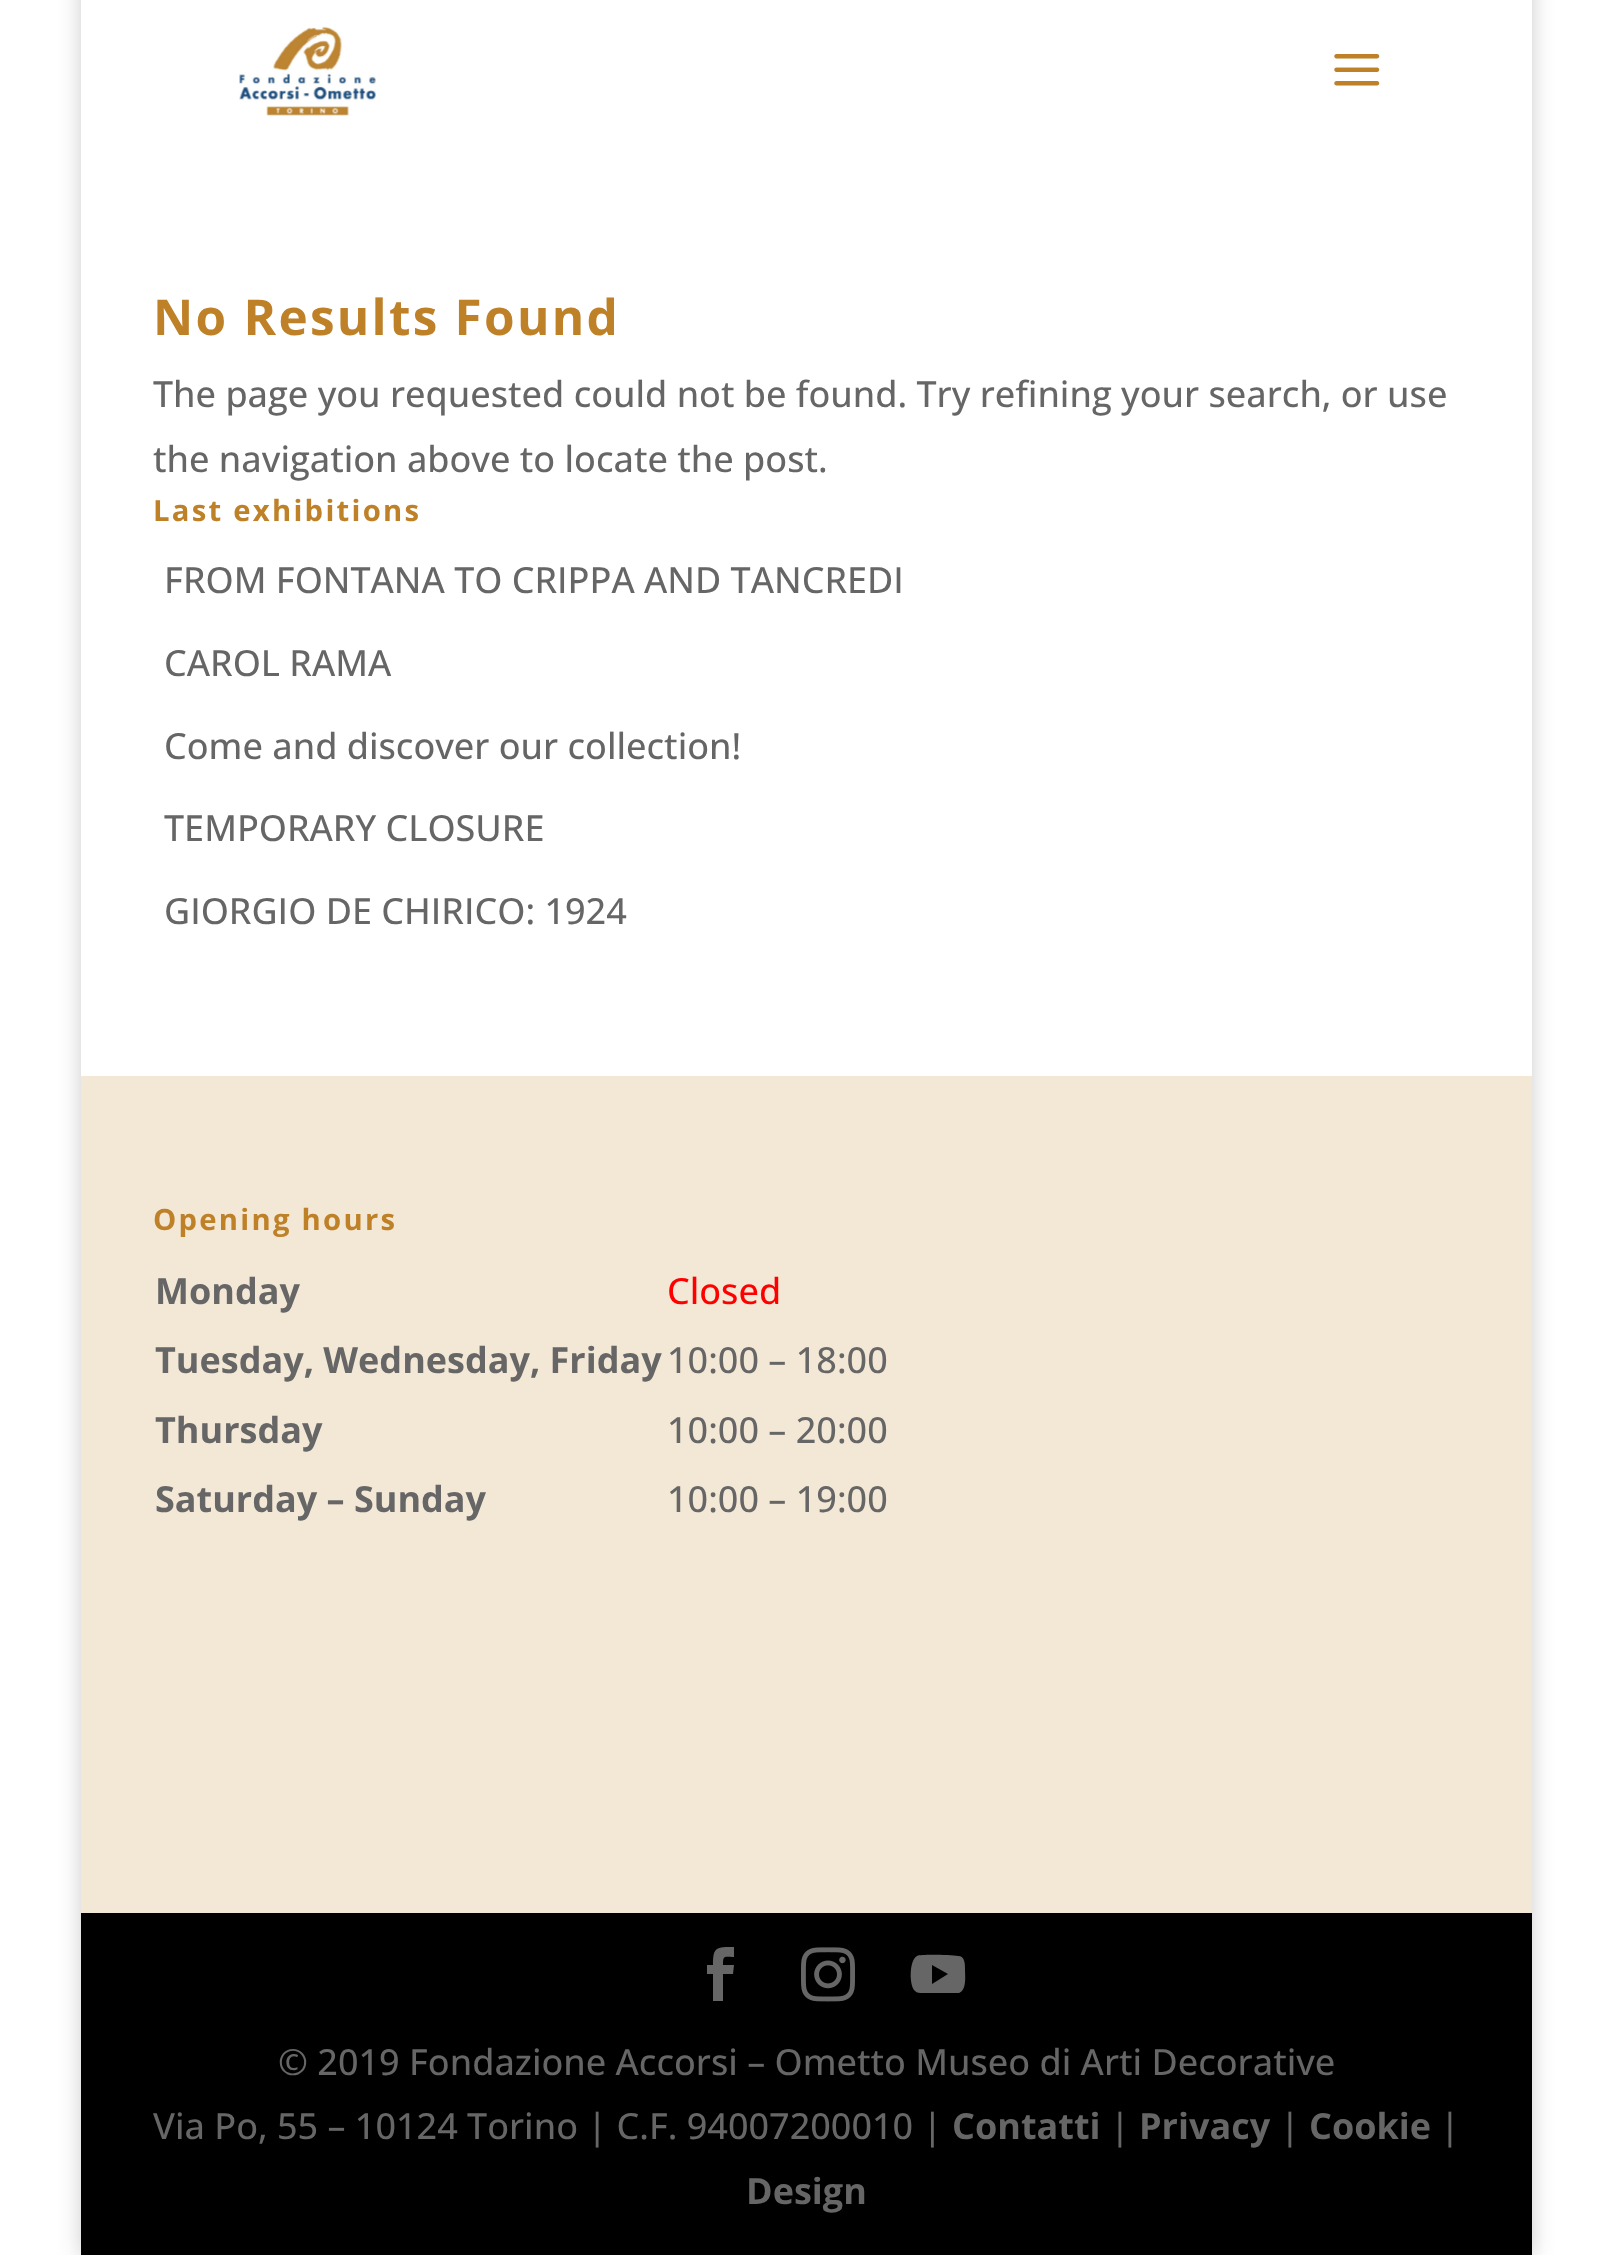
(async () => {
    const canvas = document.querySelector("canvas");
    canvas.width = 1612;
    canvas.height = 2255;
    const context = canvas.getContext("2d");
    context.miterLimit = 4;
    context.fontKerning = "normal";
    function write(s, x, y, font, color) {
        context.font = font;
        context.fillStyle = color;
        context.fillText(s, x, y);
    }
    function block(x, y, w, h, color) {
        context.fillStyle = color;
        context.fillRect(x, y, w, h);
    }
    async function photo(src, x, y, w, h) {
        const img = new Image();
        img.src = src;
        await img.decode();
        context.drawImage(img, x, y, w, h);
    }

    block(0, 0, 1612, 2255, "rgb(255, 255, 255)");
    context.save();
    context.beginPath();
    context.moveTo(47, 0);
    context.lineTo(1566, 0);
    context.lineTo(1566, 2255);
    context.lineTo(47, 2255);
    context.closePath();
    context.moveTo(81, -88);
    context.lineTo(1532, -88);
    context.lineTo(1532, 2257);
    context.lineTo(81, 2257);
    context.closePath();
    context.clip("evenodd");
    context.fillStyle = "rgba(0, 0, 0, 0.2)";
    context.filter = "blur(11px)";
    context.beginPath();
    context.rect(81, -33, 1451, 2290);
    context.fill();
    context.filter = "none";
    context.restore();
    await photo("media/1.png", 239, 26, 137, 90);
    await photo("media/2.png", 1334, 54, 46, 32);
    context.letterSpacing = "2.25px";
    write("No Results Found", 153, 335, "bold 49.5px Open Sans", "rgb(191, 129, 40)");
    context.letterSpacing = "0px";
    write("The page you requested could not be found. Try refining your search, or use", 153, 407, "500 36px Open Sans", "rgb(102, 102, 102)");
    write("the navigation above to locate the post.", 153, 472, "500 36px Open Sans", "rgb(102, 102, 102)");
    context.letterSpacing = "2.25px";
    write("Last exhibitions", 153, 521, "bold 29.25px Open Sans", "rgb(191, 129, 40)");
    context.letterSpacing = "0px";
    write("FROM FONTANA TO CRIPPA AND TANCREDI", 164, 593, "500 36px Open Sans", "rgb(102, 102, 102)");
    write("CAROL RAMA", 164, 676, "500 36px Open Sans", "rgb(102, 102, 102)");
    write("Come and discover our collection!", 164, 759, "500 36px Open Sans", "rgb(102, 102, 102)");
    write("TEMPORARY CLOSURE", 164, 841, "500 36px Open Sans", "rgb(102, 102, 102)");
    write("GIORGIO DE CHIRICO: 1924", 164, 924, "500 36px Open Sans", "rgb(102, 102, 102)");
    block(81, 1076, 1451, 837, "rgb(243, 231, 213)");
    context.letterSpacing = "2.25px";
    write("Opening hours", 153, 1230, "bold 29.25px Open Sans", "rgb(191, 129, 40)");
    context.letterSpacing = "0px";
    write("Monday", 155, 1304, "bold 36px Open Sans", "rgb(102, 102, 102)");
    write("Closed", 667, 1304, "500 36px Open Sans", "rgb(255, 0, 0)");
    write("Tuesday, Wednesday, Friday", 155, 1373, "bold 36px Open Sans", "rgb(102, 102, 102)");
    write("10:00 – 18:00", 667, 1373, "500 36px Open Sans", "rgb(102, 102, 102)");
    write("Thursday", 155, 1443, "bold 36px Open Sans", "rgb(102, 102, 102)");
    write("10:00 – 20:00", 667, 1443, "500 36px Open Sans", "rgb(102, 102, 102)");
    write("Saturday – Sunday", 155, 1512, "bold 36px Open Sans", "rgb(102, 102, 102)");
    write("10:00 – 19:00", 667, 1512, "500 36px Open Sans", "rgb(102, 102, 102)");
    block(81, 1913, 1451, 342, "rgb(0, 0, 0)");
    context.fillStyle = "rgb(102, 102, 102)";
    context.beginPath();
    context.moveTo(713, 2001);
    context.lineTo(723, 2001);
    context.lineTo(723, 1974);
    context.lineTo(733, 1974);
    context.lineTo(734, 1965);
    context.lineTo(723, 1965);
    context.bezierCurveTo(723, 1955, 724, 1957, 734, 1957);
    context.lineTo(734, 1947);
    context.bezierCurveTo(716, 1947, 713, 1947, 713, 1965);
    context.lineTo(707, 1965);
    context.lineTo(707, 1974);
    context.lineTo(713, 1974);
    context.closePath();
    context.fill();
    await photo("media/3.png", 801, 1947, 54, 55);
    context.beginPath();
    context.moveTo(958, 1956);
    context.bezierCurveTo(951, 1955, 921, 1954, 917, 1956);
    context.bezierCurveTo(909, 1960, 909, 1986, 915, 1991);
    context.bezierCurveTo(917, 1993, 920, 1993, 922, 1993);
    context.lineTo(948, 1993);
    context.lineTo(959, 1993);
    context.bezierCurveTo(967, 1990, 965, 1976, 965, 1969);
    context.bezierCurveTo(965, 1964, 965, 1956, 958, 1956);
    context.closePath();
    context.moveTo(932, 1984);
    context.lineTo(932, 1965);
    context.lineTo(948, 1974);
    context.closePath();
    context.fill();
    write("© 2019 Fondazione Accorsi – Ometto Museo di Arti Decorative", 278, 2075, "500 36px Open Sans", "rgb(102, 102, 102)");
    write("Via Po, 55 – 10124 Torino | C.F. 94007200010 |", 153, 2139, "500 36px Open Sans", "rgb(102, 102, 102)");
    write("Contatti", 952, 2139, "bold 36px Open Sans", "rgb(102, 102, 102)");
    write("|", 1110, 2139, "500 36px Open Sans", "rgb(102, 102, 102)");
    write("Privacy", 1139, 2139, "bold 36px Open Sans", "rgb(102, 102, 102)");
    write("|", 1280, 2139, "500 36px Open Sans", "rgb(102, 102, 102)");
    write("Cookie", 1309, 2139, "bold 36px Open Sans", "rgb(102, 102, 102)");
    write("|", 1440, 2139, "500 36px Open Sans", "rgb(102, 102, 102)");
    write("Design", 746, 2204, "bold 36px Open Sans", "rgb(102, 102, 102)");
})();
